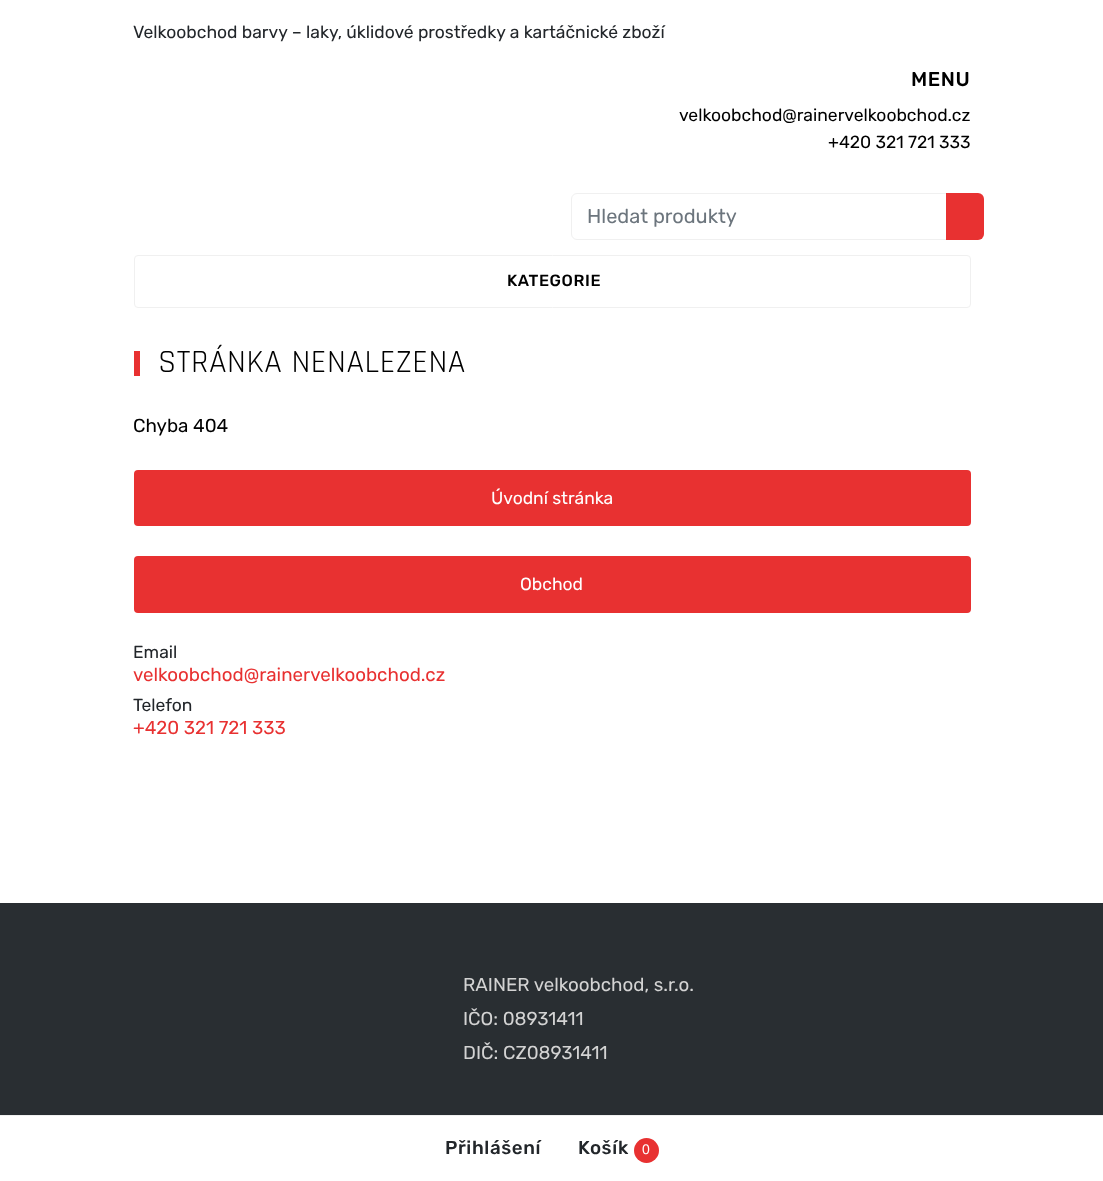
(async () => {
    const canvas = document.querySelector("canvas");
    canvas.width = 1103;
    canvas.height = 1181;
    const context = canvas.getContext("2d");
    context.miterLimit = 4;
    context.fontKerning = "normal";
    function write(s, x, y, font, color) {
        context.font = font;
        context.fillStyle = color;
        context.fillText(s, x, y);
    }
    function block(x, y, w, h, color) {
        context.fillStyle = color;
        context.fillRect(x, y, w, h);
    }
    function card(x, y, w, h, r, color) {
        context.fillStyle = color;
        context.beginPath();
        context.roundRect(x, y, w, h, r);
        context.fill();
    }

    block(0, 0, 1103, 1181, "rgb(255, 255, 255)");
    write("Velkoobchod barvy – laky, úklidové prostředky a kartáčnické zboží", 133, 38, "17.5px Rubik", "rgb(34, 38, 42)");
    context.letterSpacing = "0.6px";
    write("MENU", 911, 86, "500 20px Rubik", "rgb(0, 0, 0)");
    context.letterSpacing = "0px";
    write("velkoobchod@rainervelkoobchod.cz", 679, 121, "17.5px Rubik", "rgb(0, 0, 0)");
    write("+420 321 721 333", 828, 148, "17.5px Rubik", "rgb(0, 0, 0)");
    block(0, 1115, 1103, 1, "rgb(240, 240, 240)");
    context.letterSpacing = "0.6px";
    write("Přihlášení", 445, 1154, "500 18.75px Rubik", "rgb(34, 38, 42)");
    write("Košík", 578, 1154, "500 18.75px Rubik", "rgb(34, 38, 42)");
    context.fillStyle = "rgb(232, 49, 49)";
    context.beginPath();
    context.arc(646.5, 1150.5, 12.5, 0, Math.PI * 2);
    context.fill();
    write("0", 642, 1154, "14px Liberation Sans", "rgb(255, 255, 255)");
    context.beginPath();
    context.roundRect(571.5, 193.5, 376, 46, [5.5, 0, 0, 5.5]);
    context.strokeStyle = "rgb(240, 240, 240)";
    context.stroke();
    context.letterSpacing = "0px";
    write("Hledat produkty", 587, 223, "20px Rubik", "rgb(108, 117, 125)");
    context.fillStyle = "rgb(232, 49, 49)";
    context.beginPath();
    context.roundRect(946, 193, 38, 47, [0, 6, 6, 0]);
    context.fill();
    context.beginPath();
    context.roundRect(134.5, 255.5, 836, 52, 3.5);
    context.stroke();
    context.letterSpacing = "0.6px";
    write("KATEGORIE", 507, 286, "500 16.25px Rubik", "rgb(0, 0, 0)");
    block(134, 351, 6, 25, "rgb(232, 49, 49)");
    write("STRÁNKA NENALEZENA", 158, 372, "32.5px Rajdhani", "rgb(0, 0, 0)");
    context.letterSpacing = "0px";
    write("Chyba 404", 133, 432, "18.75px Rubik", "rgb(0, 0, 0)");
    card(134, 470, 837, 56, 4, "rgb(232, 49, 49)");
    write("Úvodní stránka", 491, 504, "17.5px Rubik", "rgb(255, 255, 255)");
    card(134, 556, 837, 57, 4, "rgb(232, 49, 49)");
    write("Obchod", 520, 590, "17.5px Rubik", "rgb(255, 255, 255)");
    write("Email", 133, 658, "17.5px Rubik", "rgb(34, 38, 42)");
    write("velkoobchod@rainervelkoobchod.cz", 133, 681, "18.75px Rubik", "rgb(232, 49, 49)");
    write("Telefon", 133, 711, "17.5px Rubik", "rgb(34, 38, 42)");
    write("+420 321 721 333", 133, 734, "18.75px Rubik", "rgb(232, 49, 49)");
    block(0, 903, 1103, 212, "rgb(41, 46, 50)");
    write("RAINER velkoobchod, s.r.o.", 463, 991, "18.75px Rubik", "rgb(211, 211, 211)");
    write("IČO: 08931411", 463, 1025, "18.75px Rubik", "rgb(211, 211, 211)");
    write("DIČ: CZ08931411", 463, 1059, "18.75px Rubik", "rgb(211, 211, 211)");
})();
